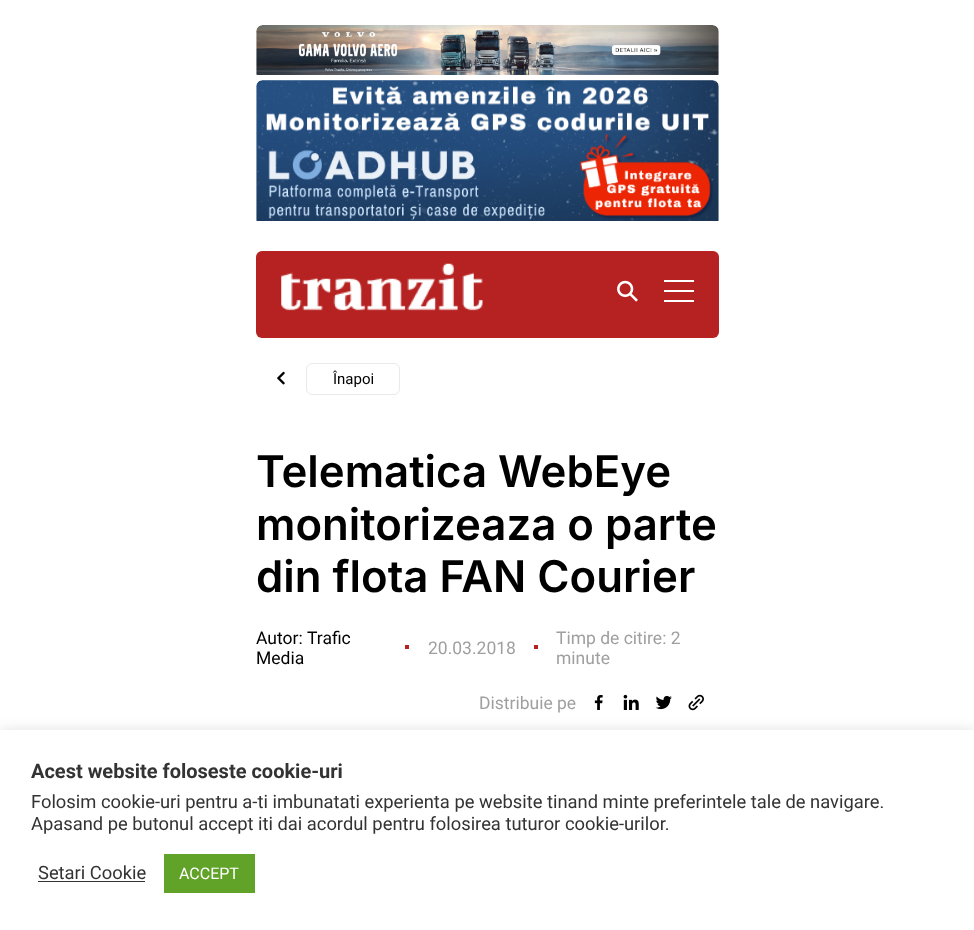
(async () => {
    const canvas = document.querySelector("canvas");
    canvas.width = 974;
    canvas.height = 930;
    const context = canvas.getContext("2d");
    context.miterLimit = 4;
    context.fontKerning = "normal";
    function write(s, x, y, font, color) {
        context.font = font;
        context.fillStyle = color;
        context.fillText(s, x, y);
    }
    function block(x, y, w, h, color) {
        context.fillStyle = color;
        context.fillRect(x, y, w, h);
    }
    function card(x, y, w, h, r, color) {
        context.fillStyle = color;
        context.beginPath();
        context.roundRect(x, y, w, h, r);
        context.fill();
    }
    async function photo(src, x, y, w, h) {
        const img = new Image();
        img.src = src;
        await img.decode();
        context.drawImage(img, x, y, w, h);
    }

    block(0, 0, 974, 930, "rgb(255, 255, 255)");
    await photo("media/1.png", 256, 25, 463, 50);
    await photo("media/2.png", 256, 80, 463, 141);
    card(256, 251, 463, 87, 6, "rgb(181, 34, 33)");
    await photo("media/3.png", 281, 263, 202, 48);
    await photo("media/4.png", 617, 280, 21, 22);
    block(664, 280, 30, 2, "rgb(255, 255, 255)");
    block(664, 290, 30, 2, "rgb(255, 255, 255)");
    block(664, 300, 30, 2, "rgb(255, 255, 255)");
    await photo("media/5.png", 277, 371, 8, 14);
    context.beginPath();
    context.roundRect(306.5, 363.5, 93, 31, 5.5);
    context.strokeStyle = "rgb(233, 233, 233)";
    context.stroke();
    write("Înapoi", 333, 384, "15px Roboto", "rgb(0, 0, 0)");
    write("Telematica WebEye", 256, 487, "600 43.75px Inter", "rgb(0, 0, 0)");
    write("monitorizeaza o parte", 256, 540, "600 43.75px Inter", "rgb(0, 0, 0)");
    write("din flota FAN Courier", 256, 592, "600 43.75px Inter", "rgb(0, 0, 0)");
    write("Autor:", 256, 644, "17.5px Roboto", "rgb(0, 0, 0)");
    write("Trafic", 307, 644, "17.5px Roboto", "rgb(0, 0, 0)");
    write("Media", 256, 664, "17.5px Roboto", "rgb(0, 0, 0)");
    block(405, 645, 4, 4, "rgb(181, 34, 33)");
    write("20.03.2018", 428, 654, "17.5px Roboto", "rgb(159, 159, 159)");
    block(534, 645, 4, 4, "rgb(181, 34, 33)");
    write("Timp de citire: 2", 556, 644, "17.5px Roboto", "rgb(159, 159, 159)");
    write("minute", 556, 664, "17.5px Roboto", "rgb(159, 159, 159)");
    write("Distribuie pe", 479, 709, "17.5px Roboto", "rgb(159, 159, 159)");
    await photo("media/6.png", 594, 695, 9, 15);
    await photo("media/7.png", 623, 694, 16, 16);
    await photo("media/8.png", 655, 695, 17, 15);
    await photo("media/9.png", 688, 694, 16, 17);
    context.fillStyle = "rgba(172, 171, 171, 0.3)";
    context.filter = "blur(6px)";
    context.beginPath();
    context.rect(0, 729, 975, 200);
    context.fill();
    context.filter = "none";
    block(0, 730, 974, 200, "rgb(255, 255, 255)");
    write("Acest website foloseste cookie-uri", 31, 778, "bold 20px Roboto", "rgb(51, 51, 51)");
    write("Folosim cookie-uri pentru a-ti imbunatati experienta pe website tinand minte preferintele tale de navigare.", 31, 808, "18.35px Roboto", "rgb(51, 51, 51)");
    write("Apasand pe butonul accept iti dai acordul pentru folosirea tuturor cookie-urilor.", 31, 830, "18.35px Roboto", "rgb(51, 51, 51)");
    write("Setari Cookie", 38, 879, "18.35px Roboto", "rgb(51, 51, 51)");
    block(38, 881, 107, 1, "rgb(51, 51, 51)");
    block(164, 854, 91, 39, "rgb(97, 162, 41)");
    write("ACCEPT", 179, 879, "16px Roboto", "rgb(255, 255, 255)");
})();
